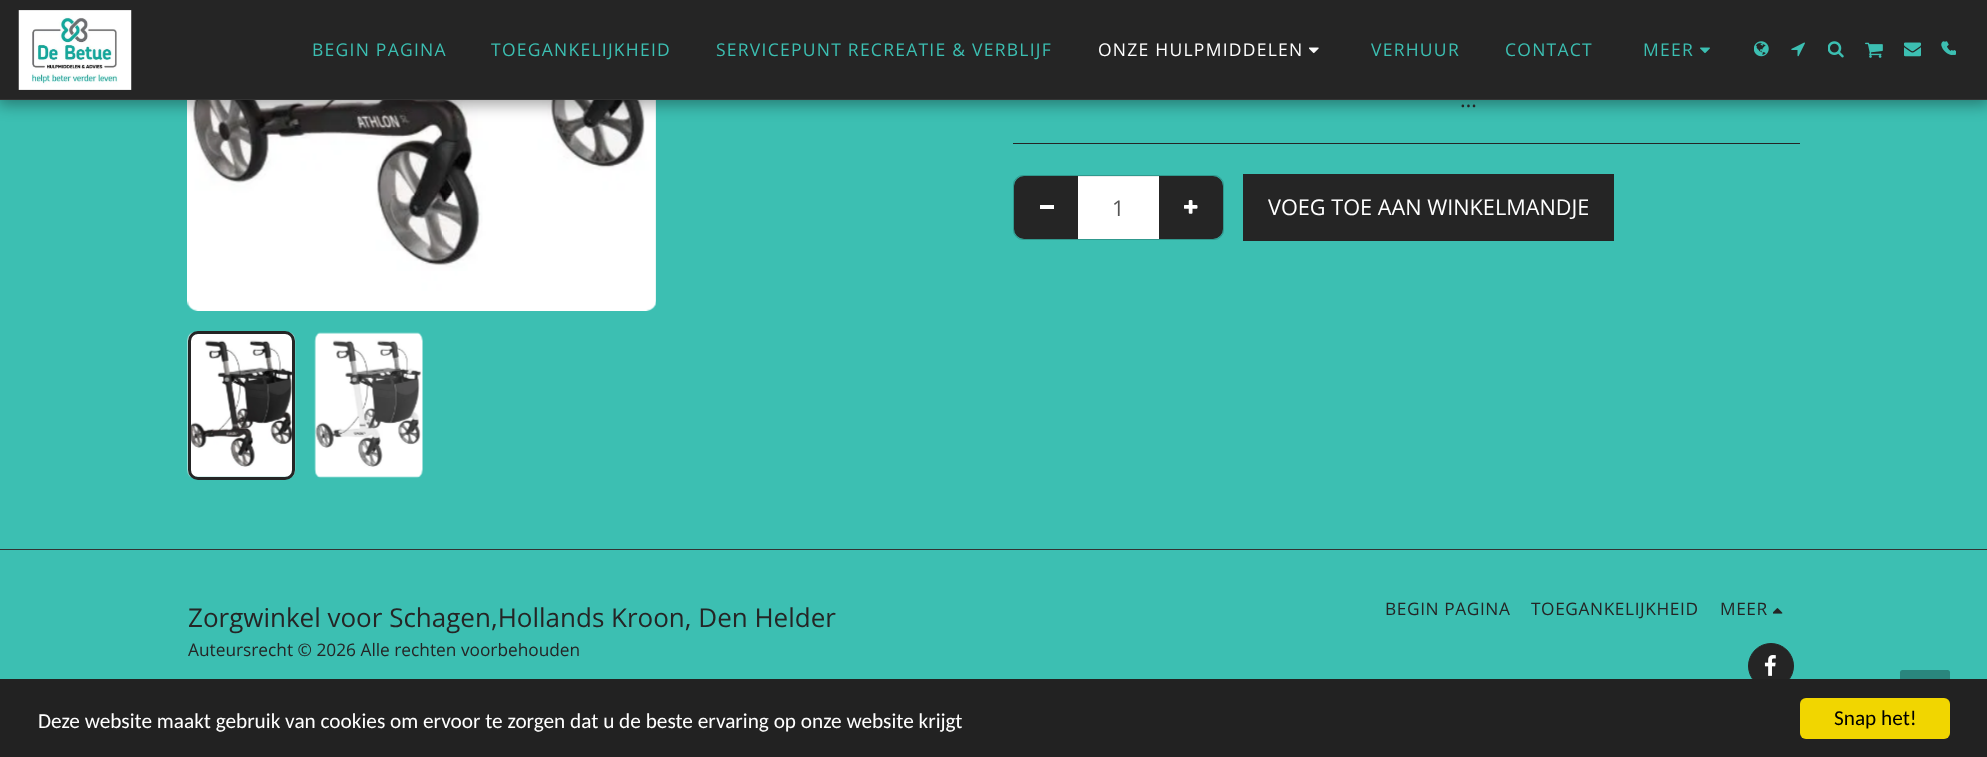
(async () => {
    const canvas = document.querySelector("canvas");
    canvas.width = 1987;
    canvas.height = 757;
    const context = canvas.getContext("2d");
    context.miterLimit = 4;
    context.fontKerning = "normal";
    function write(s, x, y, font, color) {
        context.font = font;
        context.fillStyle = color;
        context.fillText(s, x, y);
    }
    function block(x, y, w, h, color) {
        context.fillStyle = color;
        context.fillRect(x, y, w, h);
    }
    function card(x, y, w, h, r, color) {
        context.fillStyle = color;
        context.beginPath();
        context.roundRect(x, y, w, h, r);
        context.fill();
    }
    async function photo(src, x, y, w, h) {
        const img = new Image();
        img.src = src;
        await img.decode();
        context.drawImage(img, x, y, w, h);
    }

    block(0, 0, 1987, 757, "rgb(60, 191, 178)");
    await photo("media/11.png", 187, 100, 469, 211);
    context.fillStyle = "rgba(0, 0, 0, 0.35)";
    context.filter = "blur(7.5px)";
    context.beginPath();
    context.rect(-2, 0, 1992, 105);
    context.fill();
    context.filter = "none";
    block(0, 0, 1987, 99, "rgb(37, 37, 37)");
    block(0, 99, 1987, 1, "rgb(51, 51, 51)");
    await photo("media/1.png", 18, 10, 114, 80);
    context.letterSpacing = "1.25px";
    write("BEGIN PAGINA", 312, 56, "17.5px Open Sans", "rgb(60, 191, 178)");
    write("TOEGANKELIJKHEID", 491, 56, "17.5px Open Sans", "rgb(60, 191, 178)");
    write("SERVICEPUNT RECREATIE & VERBLIJF", 716, 56, "17.5px Open Sans", "rgb(60, 191, 178)");
    write("ONZE HULPMIDDELEN", 1098, 56, "17.5px Open Sans", "rgb(255, 255, 255)");
    await photo("media/2.png", 1309, 47, 10, 7);
    write("VERHUUR", 1371, 56, "17.5px Open Sans", "rgb(60, 191, 178)");
    write("CONTACT", 1505, 56, "17.5px Open Sans", "rgb(60, 191, 178)");
    write("MEER", 1643, 56, "17.5px Open Sans", "rgb(60, 191, 178)");
    await photo("media/3.png", 1700, 47, 10, 6);
    await photo("media/4.png", 1754, 41, 15, 16);
    await photo("media/5.png", 1791, 42, 14, 15);
    await photo("media/6.png", 1828, 41, 16, 17);
    await photo("media/7.png", 1865, 42, 18, 16);
    await photo("media/8.png", 1904, 42, 17, 15);
    await photo("media/9.png", 1944, 41, 12, 14);
    await photo("media/10.png", 1941, 41, 13, 14);
    await photo("media/12.png", 187, 332, 109, 146);
    context.beginPath();
    context.roundRect(189.5, 332.5, 104, 146, 8.5);
    context.strokeStyle = "rgb(37, 37, 37)";
    context.lineWidth = 3;
    context.stroke();
    await photo("media/13.png", 314, 332, 109, 146);
    context.letterSpacing = "0px";
    write("…", 1460, 107, "21.7px Open Sans", "rgb(37, 37, 37)");
    block(1013, 143, 787, 1, "rgb(37, 37, 37)");
    context.beginPath();
    context.roundRect(1013.5, 175.5, 210, 64, 9.5);
    context.strokeStyle = "rgb(48, 153, 142)";
    context.lineWidth = 1;
    context.stroke();
    context.beginPath();
    context.roundRect(1014, 176, 65, 63, [10, 0, 0, 10]);
    context.fill();
    block(1040, 205, 14, 4, "rgb(255, 255, 255)");
    context.fillStyle = "rgb(37, 37, 37)";
    context.beginPath();
    context.roundRect(1158, 176, 65, 63, [0, 10, 10, 0]);
    context.fill();
    block(1078, 177, 81, 62, "rgb(255, 255, 255)");
    block(1078, 176, 81, 1, "rgb(236, 236, 236)");
    write("1", 1112, 216, "21.7px Open Sans", "rgb(85, 85, 85)");
    await photo("media/14.png", 1184, 200, 14, 14);
    block(1243, 174, 371, 67, "rgb(37, 37, 37)");
    write("VOEG TOE AAN WINKELMANDJE", 1268, 215, "21.7px Open Sans", "rgb(255, 255, 255)");
    block(0, 549, 1987, 1, "rgb(51, 51, 51)");
    write("Zorgwinkel voor Schagen,Hollands Kroon, Den Helder", 188, 627, "26px Open Sans", "rgb(37, 37, 37)");
    write("Auteursrecht © 2026 Alle rechten voorbehouden", 188, 656, "17.3px Open Sans", "rgb(37, 37, 37)");
    context.letterSpacing = "0.6px";
    write("BEGIN PAGINA", 1385, 615, "17.3px Open Sans", "rgb(37, 37, 37)");
    write("TOEGANKELIJKHEID", 1531, 615, "17.3px Open Sans", "rgb(37, 37, 37)");
    write("MEER", 1720, 615, "17.3px Open Sans", "rgb(37, 37, 37)");
    await photo("media/15.png", 1773, 608, 10, 6);
    context.beginPath();
    context.arc(1771, 666, 22.5, 0, Math.PI * 2);
    context.fill();
    context.strokeStyle = "rgb(37, 37, 37)";
    context.stroke();
    await photo("media/16.png", 1764, 655, 12, 21);
    card(1900, 670, 50, 50, 2.5, "rgb(42, 134, 125)");
    block(0, 679, 1987, 78, "rgb(34, 34, 34)");
    context.letterSpacing = "0px";
    write("Deze website maakt gebruik van cookies om ervoor te zorgen dat u de beste ervaring op onze website krijgt", 38, 728, "21.25px Carlito", "rgb(255, 255, 255)");
    card(1800, 698, 150, 41, 6, "rgb(241, 214, 0)");
    write("Snap het!", 1834, 725, "21.25px Carlito", "rgb(0, 0, 0)");
})();
